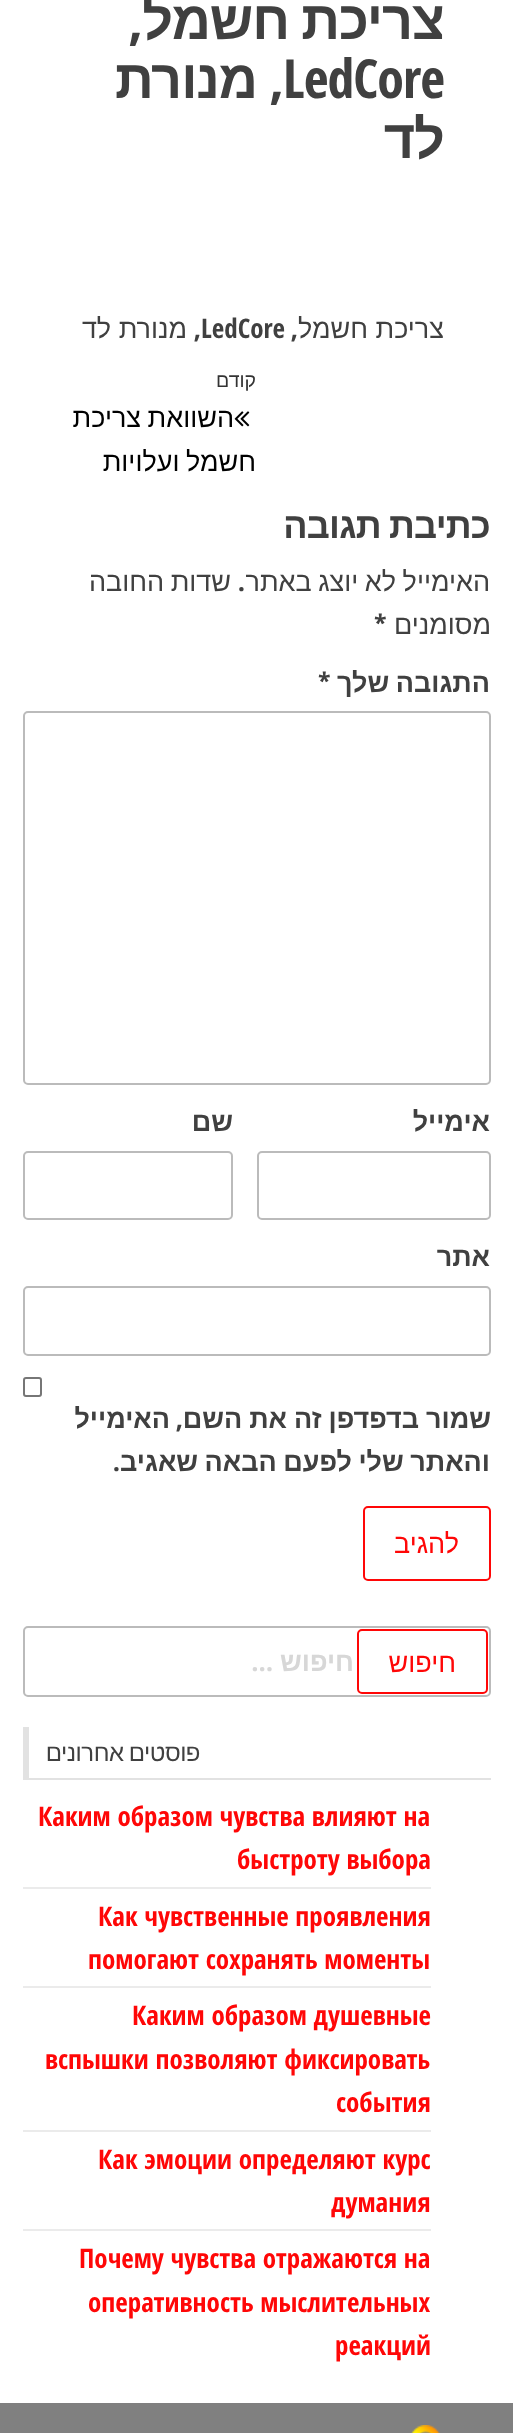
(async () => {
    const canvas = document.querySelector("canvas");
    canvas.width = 513;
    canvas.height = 2433;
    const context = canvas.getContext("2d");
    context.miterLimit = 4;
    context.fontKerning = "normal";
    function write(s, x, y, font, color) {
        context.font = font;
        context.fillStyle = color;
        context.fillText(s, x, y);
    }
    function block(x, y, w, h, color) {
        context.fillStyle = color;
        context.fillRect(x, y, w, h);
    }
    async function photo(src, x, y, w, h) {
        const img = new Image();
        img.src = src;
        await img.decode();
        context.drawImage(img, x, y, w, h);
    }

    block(0, 0, 513, 2433, "rgb(255, 255, 255)");
    context.letterSpacing = "-1px";
    context.direction = "rtl";
    write(",", 142, 39, "bold 54px Open Sans Condensed", "rgb(64, 64, 64)");
    context.wordSpacing = "-2px";
    write("צריכת חשמל", 444, 39, "bold 54px Liberation Sans", "rgb(64, 64, 64)");
    context.wordSpacing = "0px";
    write("מנורת", 257, 98, "bold 54px Liberation Sans", "rgb(64, 64, 64)");
    write(",", 283, 98, "bold 54px Open Sans Condensed", "rgb(64, 64, 64)");
    context.direction = "ltr";
    write("LedCore", 283, 98, "bold 54px Open Sans Condensed", "rgb(64, 64, 64)");
    context.direction = "rtl";
    write("לד", 444, 158, "bold 54px Liberation Sans", "rgb(64, 64, 64)");
    context.letterSpacing = "0px";
    write("מנורת לד", 187, 338, "27px Liberation Sans", "rgb(64, 64, 64)");
    write(",", 201, 338, "bold 27px Open Sans Condensed", "rgb(64, 64, 64)");
    context.direction = "ltr";
    write("LedCore", 201, 338, "bold 27px Open Sans Condensed", "rgb(64, 64, 64)");
    context.direction = "rtl";
    write(",", 298, 338, "bold 27px Open Sans Condensed", "rgb(64, 64, 64)");
    write("צריכת חשמל", 444, 338, "27px Liberation Sans", "rgb(64, 64, 64)");
    write("קודם", 256, 387, "19.5px Liberation Sans", "rgb(51, 51, 51)");
    context.wordSpacing = "-1px";
    write("השוואת צריכת", 234, 427, "27px Liberation Sans", "rgb(0, 0, 0)");
    await photo("media/1.png", 234, 411, 16, 16);
    write("חשמל ועלויות", 256, 471, "27px Liberation Sans", "rgb(0, 0, 0)");
    context.letterSpacing = "-0.75px";
    write("כתיבת תגובה", 490, 538, "bold 36px Liberation Sans", "rgb(64, 64, 64)");
    context.letterSpacing = "0px";
    write("שדות החובה", 231, 591, "27px Liberation Sans", "rgb(64, 64, 64)");
    context.wordSpacing = "0px";
    write(".", 245, 591, "bold 27px Open Sans Condensed", "rgb(64, 64, 64)");
    context.wordSpacing = "-1px";
    write("האימייל לא יוצג באתר", 490, 591, "27px Liberation Sans", "rgb(64, 64, 64)");
    context.wordSpacing = "0px";
    context.direction = "ltr";
    write("*", 374, 634, "bold 27px Open Sans Condensed", "rgb(64, 64, 64)");
    context.direction = "rtl";
    write("מסומנים", 491, 634, "27px Liberation Sans", "rgb(64, 64, 64)");
    context.direction = "ltr";
    write("*", 318, 692, "bold 27px Open Sans Condensed", "rgb(64, 64, 64)");
    context.wordSpacing = "-1px";
    context.direction = "rtl";
    write("התגובה שלך", 490, 692, "bold 27px Liberation Sans", "rgb(64, 64, 64)");
    context.beginPath();
    context.roundRect(24, 712, 466, 372, 4);
    context.strokeStyle = "rgb(187, 187, 187)";
    context.lineWidth = 2;
    context.stroke();
    context.wordSpacing = "0px";
    write("שם", 233, 1131, "bold 27px Liberation Sans", "rgb(64, 64, 64)");
    context.beginPath();
    context.roundRect(24, 1152, 208, 67, 4);
    context.stroke();
    write("אימייל", 490, 1131, "bold 27px Liberation Sans", "rgb(64, 64, 64)");
    context.beginPath();
    context.roundRect(258, 1152, 232, 67, 4);
    context.stroke();
    write("אתר", 490, 1266, "bold 27px Liberation Sans", "rgb(64, 64, 64)");
    context.beginPath();
    context.roundRect(24, 1287, 466, 68, 4);
    context.stroke();
    context.beginPath();
    context.roundRect(24, 1378, 17, 18, 2);
    context.strokeStyle = "rgb(118, 118, 118)";
    context.stroke();
    write("האימייל", 170, 1428, "bold 27px Liberation Sans", "rgb(64, 64, 64)");
    write(",", 183, 1428, "bold 27px Open Sans Condensed", "rgb(64, 64, 64)");
    context.wordSpacing = "-0.5px";
    write("שמור בדפדפן זה את השם", 491, 1428, "bold 27px Liberation Sans", "rgb(64, 64, 64)");
    context.wordSpacing = "0px";
    write(".", 120, 1471, "bold 27px Open Sans Condensed", "rgb(64, 64, 64)");
    context.wordSpacing = "-1px";
    write("והאתר שלי לפעם הבאה שאגיב", 490, 1471, "bold 27px Liberation Sans", "rgb(64, 64, 64)");
    context.beginPath();
    context.roundRect(364, 1507, 126, 73, 4);
    context.strokeStyle = "rgb(255, 7, 7)";
    context.stroke();
    context.wordSpacing = "0px";
    write("להגיב", 459, 1553, "27px Liberation Sans", "rgb(255, 7, 7)");
    context.beginPath();
    context.roundRect(24, 1627, 466, 69, 4);
    context.strokeStyle = "rgb(187, 187, 187)";
    context.stroke();
    write("…", 273, 1671, "bold 27px Open Sans Condensed", "rgb(215, 215, 215)");
    write("חיפוש", 354, 1671, "bold 27px Liberation Sans", "rgb(215, 215, 215)");
    context.beginPath();
    context.roundRect(358, 1630, 129, 63, 4);
    context.strokeStyle = "rgb(255, 7, 7)";
    context.stroke();
    write("חיפוש", 456, 1672, "27px Liberation Sans", "rgb(255, 7, 7)");
    block(23, 1778, 468, 2, "rgb(226, 226, 226)");
    block(23, 1727, 6, 51, "rgb(226, 226, 226)");
    context.letterSpacing = "-0.5px";
    context.wordSpacing = "-1px";
    write("פוסטים אחרונים", 200, 1761, "24px Liberation Sans", "rgb(64, 64, 64)");
    block(23, 1887, 408, 2, "rgb(235, 235, 235)");
    context.letterSpacing = "0px";
    context.wordSpacing = "0px";
    context.direction = "ltr";
    write("Каким образом чувства влияют на", 38, 1826, "bold 27px Open Sans Condensed", "rgb(255, 7, 7)");
    write("быстроту выбора", 237, 1869, "bold 27px Open Sans Condensed", "rgb(255, 7, 7)");
    block(23, 1986, 408, 2, "rgb(235, 235, 235)");
    write("Как чувственные проявления", 98, 1926, "bold 27px Open Sans Condensed", "rgb(255, 7, 7)");
    write("помогают сохранять моменты", 88, 1969, "bold 27px Open Sans Condensed", "rgb(255, 7, 7)");
    block(23, 2130, 408, 2, "rgb(235, 235, 235)");
    write("Каким образом душевные", 132, 2025, "bold 27px Open Sans Condensed", "rgb(255, 7, 7)");
    write("вспышки позволяют фиксировать", 45, 2069, "bold 27px Open Sans Condensed", "rgb(255, 7, 7)");
    write("события", 336, 2112, "bold 27px Open Sans Condensed", "rgb(255, 7, 7)");
    block(23, 2229, 408, 2, "rgb(235, 235, 235)");
    write("Как эмоции определяют курс", 98, 2169, "bold 27px Open Sans Condensed", "rgb(255, 7, 7)");
    write("думания", 331, 2212, "bold 27px Open Sans Condensed", "rgb(255, 7, 7)");
    write("Почему чувства отражаются на", 79, 2268, "bold 27px Open Sans Condensed", "rgb(255, 7, 7)");
    write("оперативность мыслительных", 88, 2312, "bold 27px Open Sans Condensed", "rgb(255, 7, 7)");
    write("реакций", 335, 2355, "bold 27px Open Sans Condensed", "rgb(255, 7, 7)");
    block(0, 2403, 513, 30, "rgb(128, 128, 128)");
    await photo("media/2.png", 411, 2425, 29, 8);
})();
